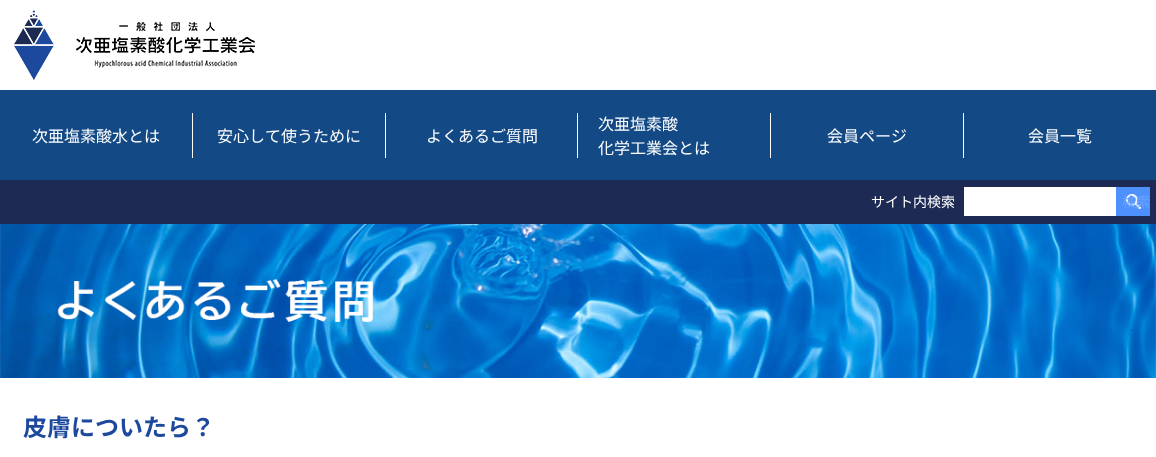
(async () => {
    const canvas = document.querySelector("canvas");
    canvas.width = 1156;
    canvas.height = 457;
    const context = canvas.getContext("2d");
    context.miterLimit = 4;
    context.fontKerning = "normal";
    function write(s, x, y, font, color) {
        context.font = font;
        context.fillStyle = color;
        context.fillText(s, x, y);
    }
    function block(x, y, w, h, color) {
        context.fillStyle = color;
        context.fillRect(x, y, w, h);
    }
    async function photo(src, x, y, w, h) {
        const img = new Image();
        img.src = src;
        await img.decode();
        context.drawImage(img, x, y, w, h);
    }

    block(0, 0, 1156, 457, "rgb(19, 73, 133)");
    block(0, 0, 1156, 90, "rgb(255, 255, 255)");
    await photo("media/1.png", 14, 10, 241, 70);
    write("次亜塩素酸水とは", 32, 142, "16px Noto Sans JP", "rgb(255, 255, 255)");
    block(192, 113, 1, 45, "rgb(255, 255, 255)");
    write("安心して使うために", 217, 142, "16px Noto Sans JP", "rgb(255, 255, 255)");
    block(385, 113, 1, 45, "rgb(255, 255, 255)");
    write("よくあるご質問", 426, 142, "16px Noto Sans JP", "rgb(255, 255, 255)");
    block(577, 113, 1, 45, "rgb(255, 255, 255)");
    write("次亜塩素酸", 598, 130, "16px Noto Sans JP", "rgb(255, 255, 255)");
    write("化学工業会とは", 598, 154, "16px Noto Sans JP", "rgb(255, 255, 255)");
    block(770, 113, 1, 45, "rgb(255, 255, 255)");
    write("会員ページ", 827, 142, "16px Noto Sans JP", "rgb(255, 255, 255)");
    block(963, 113, 1, 45, "rgb(255, 255, 255)");
    write("会員一覧", 1028, 142, "16px Noto Sans JP", "rgb(255, 255, 255)");
    block(0, 180, 1156, 44, "rgb(29, 42, 83)");
    write("サイト内検索", 871, 207, "14px Noto Sans JP", "rgb(255, 255, 255)");
    block(964, 187, 152, 29, "rgb(255, 255, 255)");
    block(1116, 187, 34, 29, "rgb(77, 144, 254)");
    await photo("media/2.png", 1126, 194, 15, 15);
    write("検索", 1122, 207, "14px Noto Sans JP", "rgb(104, 161, 254)");
    block(0, 224, 1156, 233, "rgb(255, 255, 255)");
    await photo("media/3.png", 0, 224, 1156, 154);
    write("皮膚についたら？", 23, 436, "bold 24px Noto Sans JP", "rgb(28, 73, 158)");
})();
